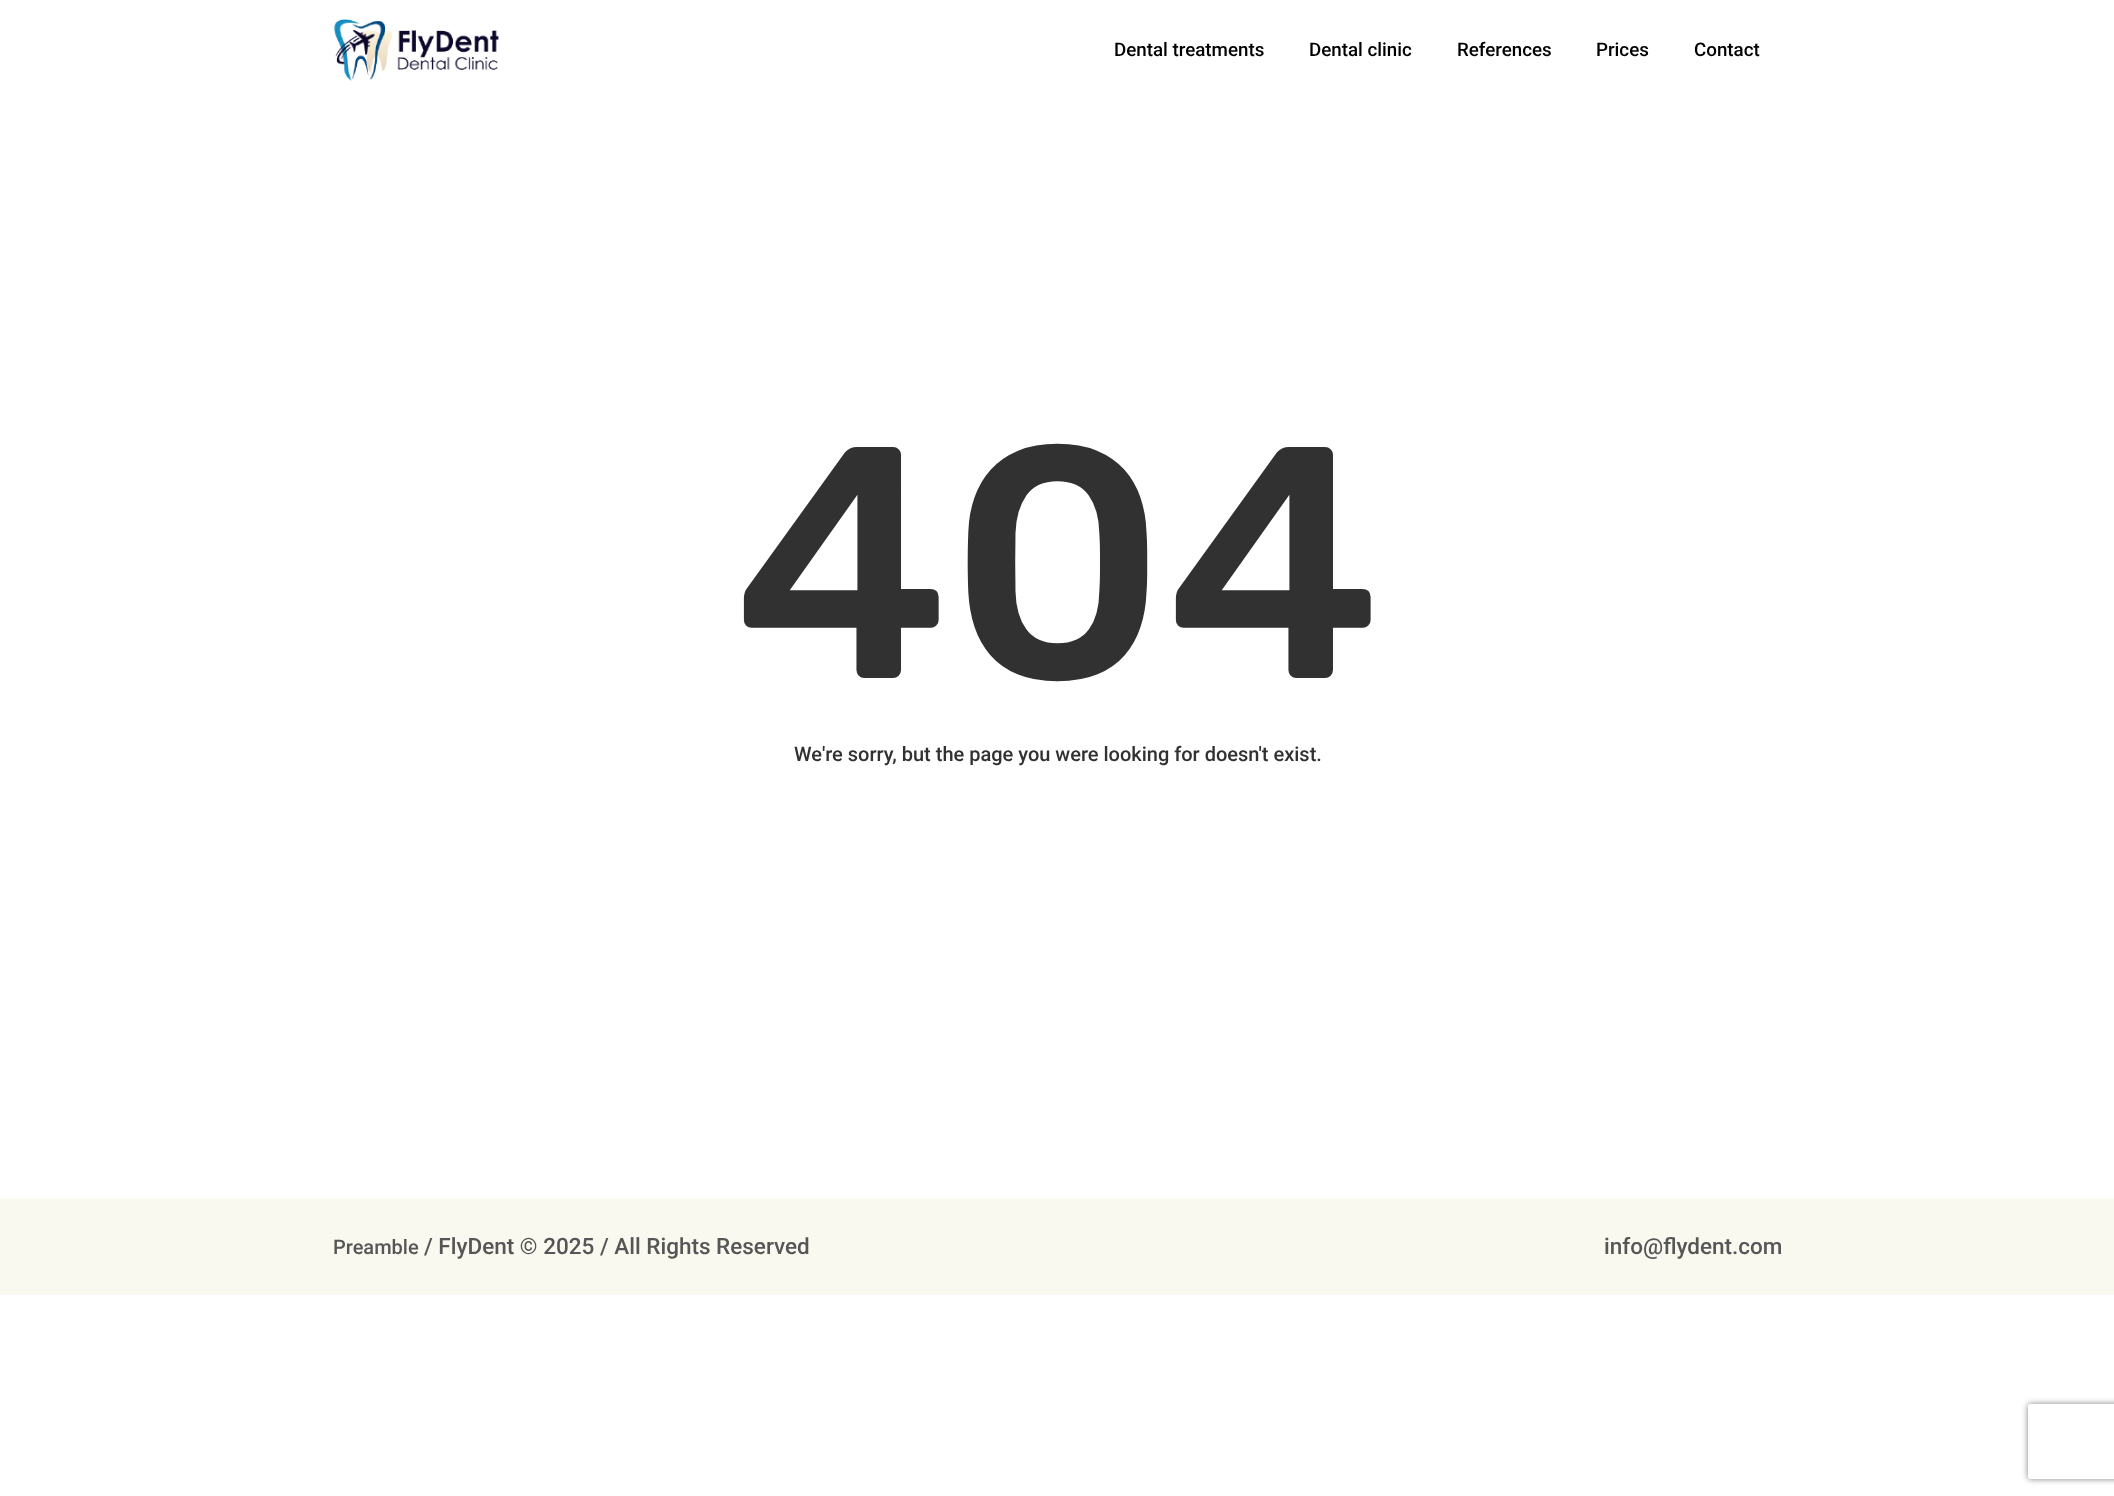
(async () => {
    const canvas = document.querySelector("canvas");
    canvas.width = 2114;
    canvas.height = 1496;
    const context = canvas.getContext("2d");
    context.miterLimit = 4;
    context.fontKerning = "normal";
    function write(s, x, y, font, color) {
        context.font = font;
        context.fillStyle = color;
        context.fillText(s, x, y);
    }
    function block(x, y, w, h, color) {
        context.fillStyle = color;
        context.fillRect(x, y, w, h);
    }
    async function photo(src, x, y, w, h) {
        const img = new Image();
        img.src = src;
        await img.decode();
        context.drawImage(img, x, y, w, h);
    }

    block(0, 0, 2114, 1496, "rgb(255, 255, 255)");
    await photo("media/1.png", 334, 19, 165, 62);
    write("Dental treatments", 1114, 56, "500 18.75px Roboto", "rgb(0, 0, 0)");
    write("Dental clinic", 1309, 56, "500 18.75px Roboto", "rgb(0, 0, 0)");
    write("References", 1457, 56, "500 18.75px Roboto", "rgb(0, 0, 0)");
    write("Prices", 1596, 56, "500 18.75px Roboto", "rgb(0, 0, 0)");
    write("Contact", 1694, 56, "500 18.75px Roboto", "rgb(0, 0, 0)");
    write("404", 734, 678, "500 330px Rubik", "rgb(49, 49, 49)");
    write("We're sorry, but the page you were looking for doesn't exist.", 794, 761, "500 20px Roboto", "rgb(49, 49, 49)");
    block(0, 1199, 2114, 96, "rgb(249, 249, 240)");
    write("Preamble", 333, 1254, "500 20px Roboto", "rgb(86, 86, 86)");
    write("/ FlyDent © 2025 / All Rights Reserved", 424, 1254, "500 22.5px Roboto", "rgb(86, 86, 86)");
    write("info@flydent.com", 1604, 1254, "500 22.5px Roboto", "rgb(86, 86, 86)");
    context.save();
    context.beginPath();
    context.moveTo(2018, 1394);
    context.lineTo(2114, 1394);
    context.lineTo(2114, 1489);
    context.lineTo(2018, 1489);
    context.closePath();
    context.moveTo(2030.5, 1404);
    context.lineTo(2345.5, 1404);
    context.bezierCurveTo(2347, 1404, 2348, 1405, 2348, 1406.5);
    context.lineTo(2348, 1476.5);
    context.bezierCurveTo(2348, 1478, 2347, 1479, 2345.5, 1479);
    context.lineTo(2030.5, 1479);
    context.bezierCurveTo(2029, 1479, 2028, 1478, 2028, 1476.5);
    context.lineTo(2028, 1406.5);
    context.bezierCurveTo(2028, 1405, 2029, 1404, 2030.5, 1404);
    context.closePath();
    context.clip("evenodd");
    context.fillStyle = "rgb(128, 128, 128)";
    context.filter = "blur(3px)";
    context.beginPath();
    context.roundRect(2028, 1404, 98, 75, 2.5);
    context.fill();
    context.filter = "none";
    context.restore();
})();
